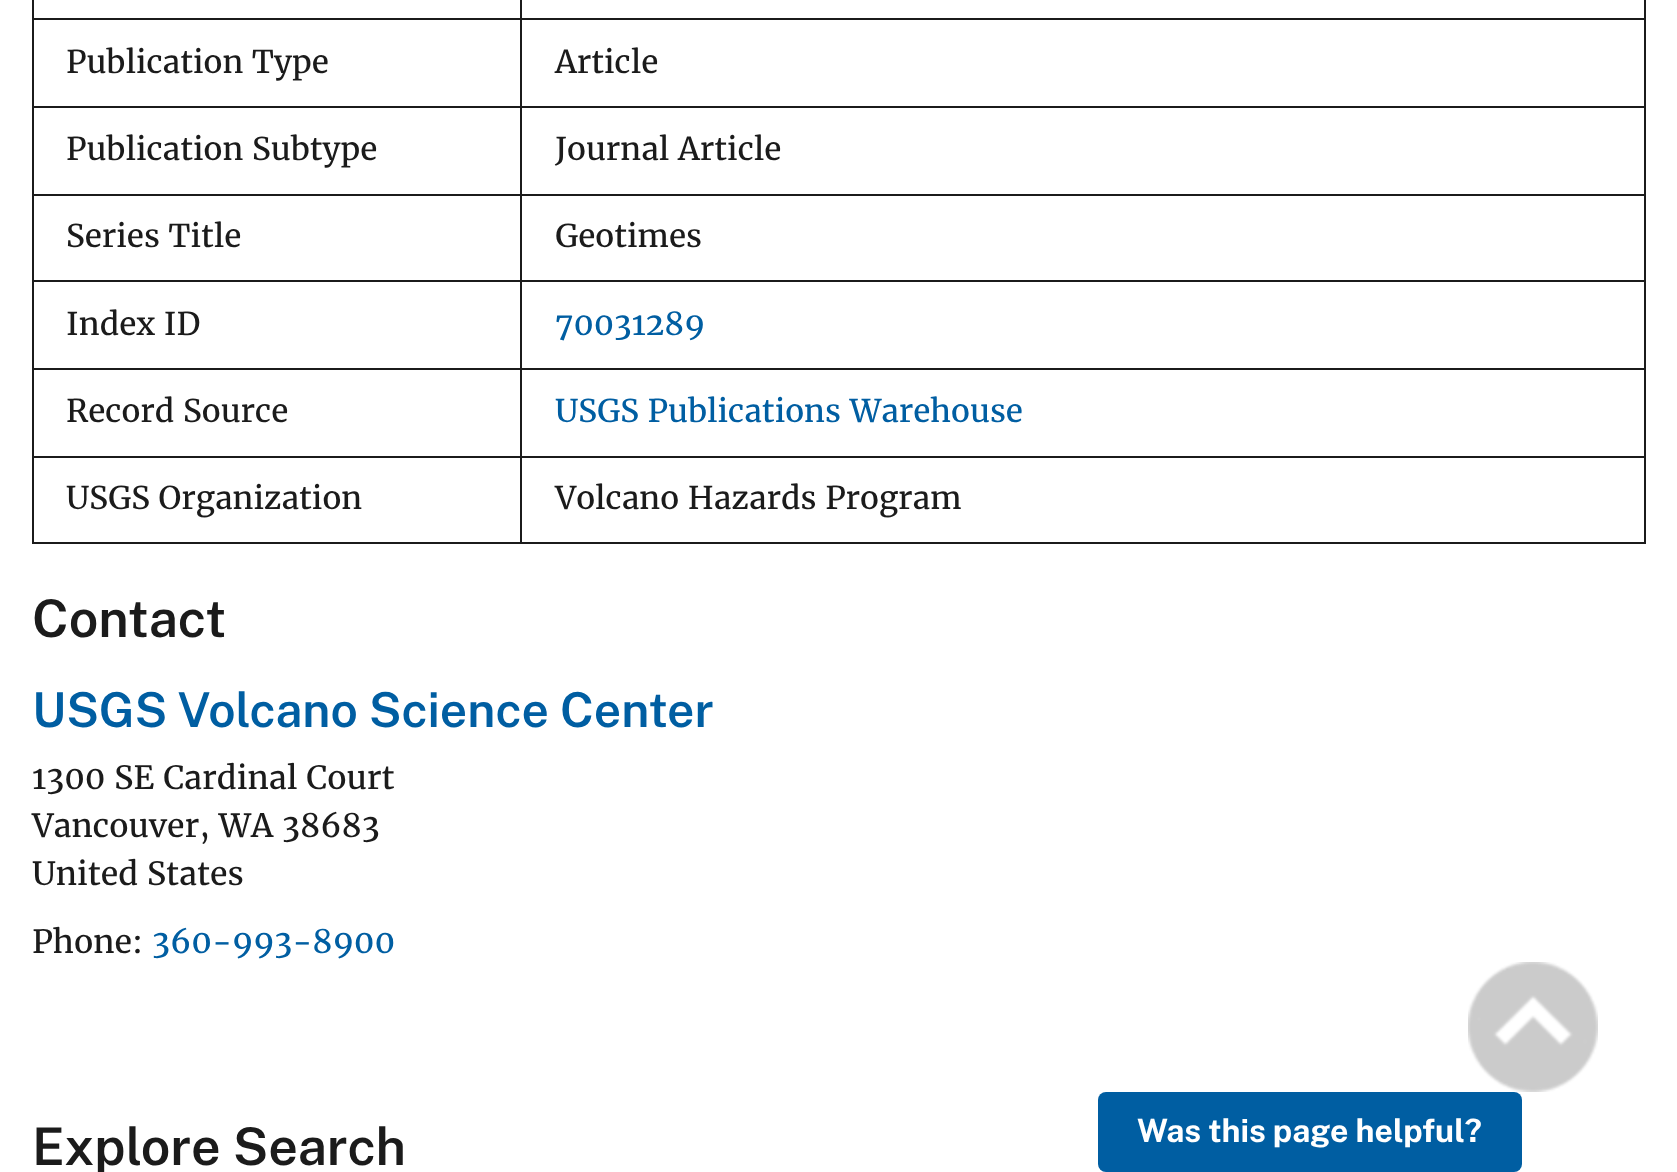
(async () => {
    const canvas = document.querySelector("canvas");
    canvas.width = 1677;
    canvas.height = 1172;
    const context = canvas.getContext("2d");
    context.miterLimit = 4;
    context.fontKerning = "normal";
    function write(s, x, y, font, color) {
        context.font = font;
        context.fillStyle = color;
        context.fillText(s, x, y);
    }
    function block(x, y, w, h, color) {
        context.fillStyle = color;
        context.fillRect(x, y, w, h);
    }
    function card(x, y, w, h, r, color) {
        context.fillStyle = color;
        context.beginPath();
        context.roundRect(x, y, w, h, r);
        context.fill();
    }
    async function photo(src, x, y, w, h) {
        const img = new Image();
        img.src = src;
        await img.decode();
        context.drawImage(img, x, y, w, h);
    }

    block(0, 0, 1677, 1172, "rgb(255, 255, 255)");
    block(520, 18, 1126, 2, "rgb(27, 27, 27)");
    block(520, 106, 1126, 2, "rgb(27, 27, 27)");
    block(520, 194, 1126, 2, "rgb(27, 27, 27)");
    block(520, 280, 1126, 2, "rgb(27, 27, 27)");
    block(520, 368, 1126, 2, "rgb(27, 27, 27)");
    block(520, 456, 1126, 2, "rgb(27, 27, 27)");
    block(1644, 456, 2, 88, "rgb(27, 27, 27)");
    block(520, 542, 1126, 2, "rgb(27, 27, 27)");
    block(520, 456, 2, 88, "rgb(27, 27, 27)");
    block(32, 456, 490, 2, "rgb(27, 27, 27)");
    block(520, 368, 2, 90, "rgb(27, 27, 27)");
    block(32, 368, 490, 2, "rgb(27, 27, 27)");
    block(520, 280, 2, 90, "rgb(27, 27, 27)");
    block(32, 280, 490, 2, "rgb(27, 27, 27)");
    block(520, 194, 2, 88, "rgb(27, 27, 27)");
    block(32, 194, 490, 2, "rgb(27, 27, 27)");
    block(520, 106, 2, 90, "rgb(27, 27, 27)");
    block(32, 106, 490, 2, "rgb(27, 27, 27)");
    block(520, 18, 2, 90, "rgb(27, 27, 27)");
    block(32, 18, 490, 2, "rgb(27, 27, 27)");
    block(520, 0, 2, 20, "rgb(27, 27, 27)");
    block(32, 542, 490, 2, "rgb(27, 27, 27)");
    block(32, 456, 2, 88, "rgb(27, 27, 27)");
    block(32, 368, 2, 90, "rgb(27, 27, 27)");
    block(32, 280, 2, 90, "rgb(27, 27, 27)");
    block(32, 194, 2, 88, "rgb(27, 27, 27)");
    block(32, 106, 2, 90, "rgb(27, 27, 27)");
    block(32, 0, 2, 108, "rgb(27, 27, 27)");
    write("Publication Type", 66, 73, "31.4px Merriweather", "rgb(27, 27, 27)");
    block(1644, 368, 2, 90, "rgb(27, 27, 27)");
    block(1644, 280, 2, 90, "rgb(27, 27, 27)");
    block(1644, 194, 2, 88, "rgb(27, 27, 27)");
    block(1644, 106, 2, 90, "rgb(27, 27, 27)");
    block(1644, 0, 2, 108, "rgb(27, 27, 27)");
    write("Article", 555, 73, "31.4px Merriweather", "rgb(27, 27, 27)");
    write("Publication Subtype", 66, 160, "31.4px Merriweather", "rgb(27, 27, 27)");
    write("Journal Article", 555, 160, "31.4px Merriweather", "rgb(27, 27, 27)");
    write("Series Title", 66, 247, "31.4px Merriweather", "rgb(27, 27, 27)");
    write("Geotimes", 555, 247, "31.4px Merriweather", "rgb(27, 27, 27)");
    write("Index ID", 66, 335, "31.4px Merriweather", "rgb(27, 27, 27)");
    write("70031289", 555, 335, "31.4px Merriweather", "rgb(0, 94, 162)");
    write("Record Source", 66, 422, "31.4px Merriweather", "rgb(27, 27, 27)");
    write("USGS Publications Warehouse", 555, 422, "31.4px Merriweather", "rgb(0, 94, 162)");
    write("USGS Organization", 66, 509, "31.4px Merriweather", "rgb(27, 27, 27)");
    write("Volcano Hazards Program", 555, 509, "31.4px Merriweather", "rgb(27, 27, 27)");
    write("Contact", 32, 637, "600 52px Public Sans", "rgb(27, 27, 27)");
    write("USGS Volcano Science Center", 32, 727, "600 48px Public Sans", "rgb(0, 94, 162)");
    write("1300 SE Cardinal Court", 32, 789, "32px Merriweather", "rgb(27, 27, 27)");
    write("Vancouver, WA 38683", 32, 837, "32px Merriweather", "rgb(27, 27, 27)");
    write("United States", 32, 885, "32px Merriweather", "rgb(27, 27, 27)");
    write("Phone:", 32, 953, "32px Merriweather", "rgb(27, 27, 27)");
    write("360-993-8900", 152, 953, "32px Merriweather", "rgb(0, 94, 162)");
    write("Explore Search", 32, 1165, "600 52px Public Sans", "rgb(27, 27, 27)");
    await photo("media/1.png", 1468, 962, 130, 130);
    card(1098, 1092, 424, 80, 8, "rgb(0, 94, 162)");
    write("Was this page helpful?", 1137, 1142, "bold 32px Public Sans", "rgb(255, 255, 255)");
})();
